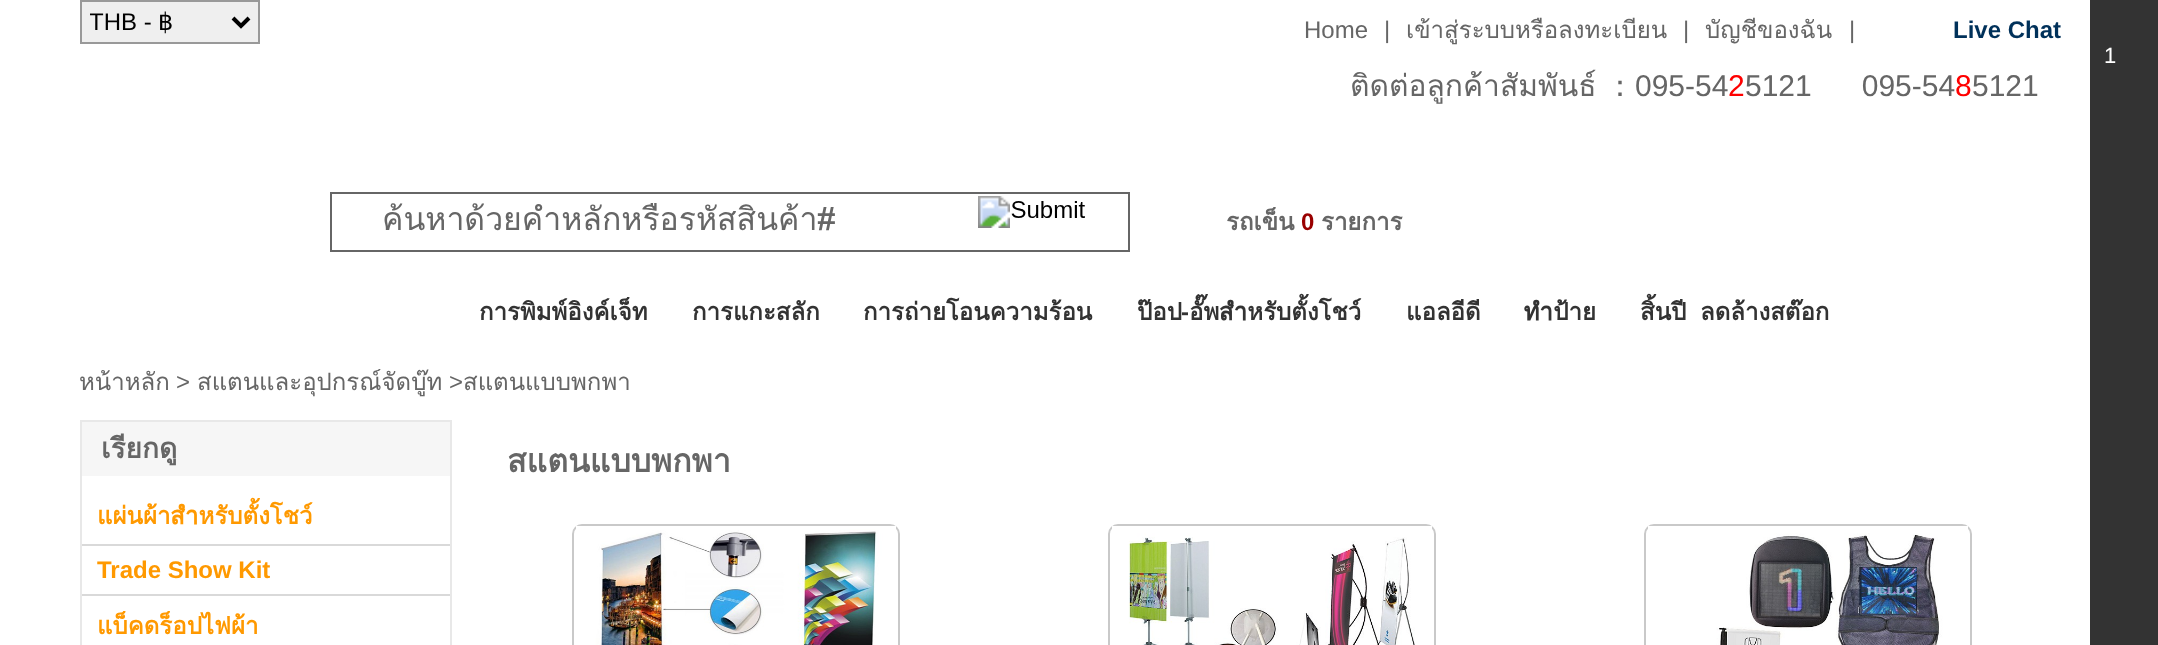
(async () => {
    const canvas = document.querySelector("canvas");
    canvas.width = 2158;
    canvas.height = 645;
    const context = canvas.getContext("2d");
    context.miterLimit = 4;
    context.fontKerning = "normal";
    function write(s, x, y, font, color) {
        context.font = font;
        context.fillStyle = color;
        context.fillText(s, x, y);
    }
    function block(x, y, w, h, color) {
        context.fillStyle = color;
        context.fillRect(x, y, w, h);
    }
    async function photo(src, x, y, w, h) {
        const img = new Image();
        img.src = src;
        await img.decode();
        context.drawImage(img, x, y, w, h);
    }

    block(0, 0, 2158, 645, "rgb(255, 255, 255)");
    context.fillStyle = "rgb(239, 239, 239)";
    context.beginPath();
    context.rect(81, 1, 178, 42);
    context.fill();
    context.strokeStyle = "rgb(153, 153, 153)";
    context.lineWidth = 2;
    context.stroke();
    context.beginPath();
    context.moveTo(233, 18);
    context.lineTo(241, 26);
    context.lineTo(249, 18);
    context.strokeStyle = "rgb(0, 0, 0)";
    context.lineWidth = 4;
    context.stroke();
    context.save();
    context.beginPath();
    context.rect(90, 6, 136, 32);
    context.clip();
    write("THB -", 89, 30, "24px Liberation Sans", "rgb(0, 0, 0)");
    context.restore();
    write("฿", 158, 30, "24px DejaVu Sans", "rgb(0, 0, 0)");
    write("Home", 1304, 38, "24px Liberation Sans", "rgb(102, 102, 102)");
    write("|", 1384, 38, "24px Liberation Sans", "rgb(102, 102, 102)");
    write("เข้าสู่ระบบหรือลงทะเบียน", 1406, 38, "24px Loma", "rgb(102, 102, 102)");
    write("|", 1683, 38, "24px Liberation Sans", "rgb(102, 102, 102)");
    write("บัญชีของฉัน", 1705, 38, "24px Loma", "rgb(102, 102, 102)");
    write("|", 1849, 38, "24px Liberation Sans", "rgb(102, 102, 102)");
    write("Live Chat", 1953, 38, "bold 24px Liberation Sans", "rgb(0, 49, 90)");
    write("ติดต่อลูกค้าสัมพันธ์", 1350, 96, "30px Loma", "rgb(102, 102, 102)");
    write("：", 1605, 96, "500 30px WenQuanYi Zen Hei", "rgb(102, 102, 102)");
    write("095-54", 1635, 96, "30px Liberation Sans", "rgb(102, 102, 102)");
    write("2", 1728, 96, "30px Liberation Sans", "rgb(255, 0, 0)");
    write("5121      095-54", 1745, 96, "30px Liberation Sans", "rgb(102, 102, 102)");
    write("8", 1955, 96, "30px Liberation Sans", "rgb(255, 0, 0)");
    write("5121", 1972, 96, "30px Liberation Sans", "rgb(102, 102, 102)");
    context.strokeStyle = "rgb(102, 102, 102)";
    context.lineWidth = 2;
    context.strokeRect(331, 193, 798, 58);
    context.save();
    context.beginPath();
    context.rect(382, 196, 596, 48);
    context.clip();
    write("ค้นหาด้วยคำหลักหรือรหัสสินค้า#", 382, 230, "32px Loma", "rgb(102, 102, 102)");
    context.restore();
    await photo("media/1.png", 978, 196, 107, 32);
    write("รถเข็น", 1226, 230, "bold 24px Loma", "rgb(102, 102, 102)");
    write("0", 1301, 230, "bold 24px Liberation Sans", "rgb(153, 0, 0)");
    write("รายการ", 1321, 230, "bold 24px Loma", "rgb(102, 102, 102)");
    block(2090, 588, 68, 57, "rgb(51, 51, 51)");
    block(2090, 0, 68, 588, "rgb(51, 51, 51)");
    write("1", 2104, 63, "22px Liberation Sans", "rgb(255, 255, 255)");
    write("การพิมพ์อิงค์เจ็ท", 479, 320, "bold 24px Loma", "rgb(51, 51, 51)");
    write("การแกะสลัก", 692, 320, "bold 24px Loma", "rgb(51, 51, 51)");
    write("การถ่ายโอนความร้อน", 863, 320, "bold 24px Loma", "rgb(51, 51, 51)");
    write("ป๊อป", 1137, 320, "bold 24px Loma", "rgb(51, 51, 51)");
    write("-", 1181, 320, "bold 24px Liberation Sans", "rgb(51, 51, 51)");
    write("อั๊พสำหรับตั้งโชว์", 1189, 320, "bold 24px Loma", "rgb(51, 51, 51)");
    write("แอลอีดี", 1406, 320, "bold 24px Loma", "rgb(51, 51, 51)");
    write("ทำป้าย", 1524, 320, "bold 24px Loma", "rgb(51, 51, 51)");
    write("สิ้นปี", 1640, 320, "bold 24px Loma", "rgb(51, 51, 51)");
    write("ลดล้างสต๊อก", 1700, 320, "bold 24px Loma", "rgb(51, 51, 51)");
    write("หน้าหลัก", 79, 390, "24px Loma", "rgb(102, 102, 102)");
    write(">", 176, 390, "24px Liberation Sans", "rgb(102, 102, 102)");
    write("สแตนและอุปกรณ์จัดบู๊ท", 197, 390, "24px Loma", "rgb(102, 102, 102)");
    write(">", 449, 390, "24px Liberation Sans", "rgb(102, 102, 102)");
    write("สแตนแบบพกพา", 463, 390, "24px Loma", "rgb(102, 102, 102)");
    context.strokeStyle = "rgb(232, 232, 232)";
    context.strokeRect(81, 421, 370, 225);
    block(82, 422, 368, 54, "rgb(246, 246, 246)");
    write("เรียกดู", 101, 458, "bold 28px Loma", "rgb(102, 102, 102)");
    block(82, 544, 368, 2, "rgb(217, 217, 217)");
    write("แผ่นผ้าสำหรับตั้งโชว์", 97, 524, "bold 24px Loma", "rgb(255, 153, 0)");
    block(82, 594, 368, 2, "rgb(217, 217, 217)");
    write("Trade Show Kit", 97, 578, "bold 24px Liberation Sans", "rgb(255, 153, 0)");
    write("แบ็คดร็อปไฟผ้า", 97, 634, "bold 24px Loma", "rgb(255, 153, 0)");
    write("สแตนแบบพกพา", 507, 472, "bold 32px Loma", "rgb(102, 102, 102)");
    context.beginPath();
    context.roundRect(573, 525, 326, 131, 9);
    context.strokeStyle = "rgb(201, 201, 201)";
    context.stroke();
    await photo("media/2.png", 576, 526, 320, 119);
    context.beginPath();
    context.roundRect(1109, 525, 326, 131, 9);
    context.stroke();
    await photo("media/3.png", 1112, 526, 320, 119);
    context.beginPath();
    context.roundRect(1645, 525, 326, 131, 9);
    context.stroke();
    await photo("media/4.png", 1648, 526, 320, 119);
})();
